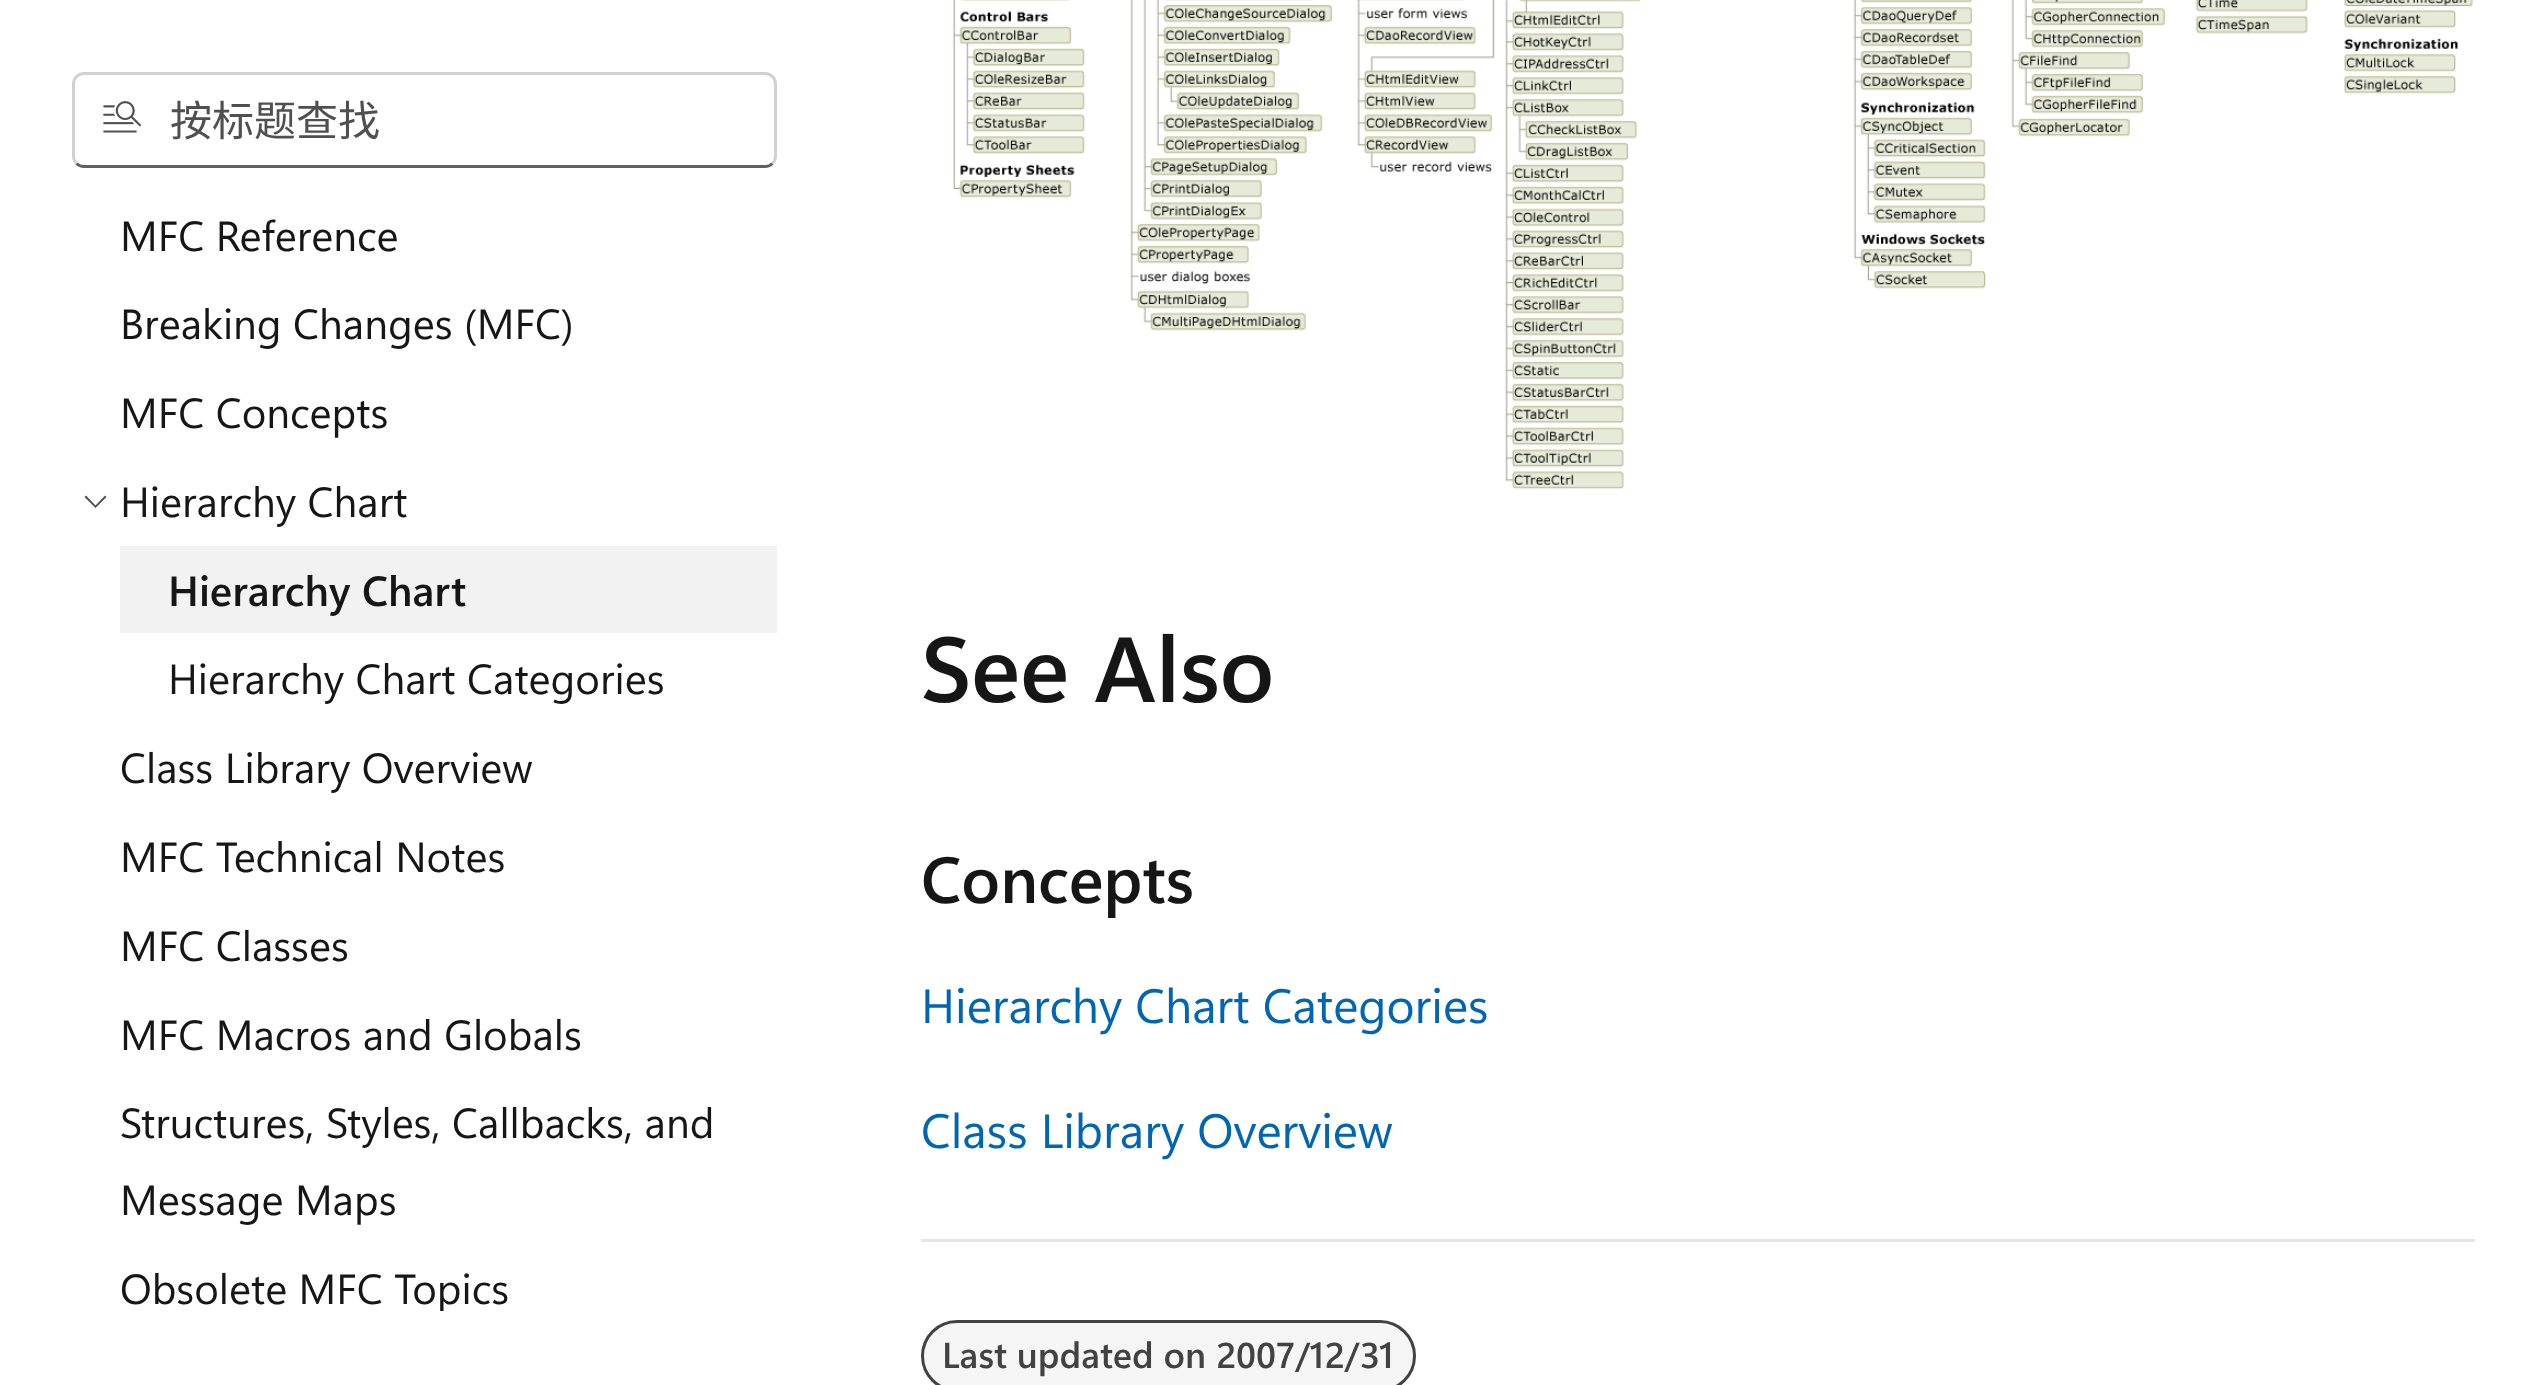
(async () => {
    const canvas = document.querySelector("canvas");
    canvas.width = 2546;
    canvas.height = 1385;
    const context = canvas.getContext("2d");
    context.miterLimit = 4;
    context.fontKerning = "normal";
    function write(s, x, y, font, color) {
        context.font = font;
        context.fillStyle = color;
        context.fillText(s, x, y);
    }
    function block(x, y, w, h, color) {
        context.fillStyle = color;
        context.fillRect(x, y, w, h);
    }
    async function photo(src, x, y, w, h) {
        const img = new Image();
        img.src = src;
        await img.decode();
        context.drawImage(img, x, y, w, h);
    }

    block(0, 0, 2546, 1385, "rgb(255, 255, 255)");
    context.beginPath();
    context.moveTo(772.5, 163.5);
    context.bezierCurveTo(770.5, 165.5, 768, 166.5, 765, 166.5);
    context.lineTo(84, 166.5);
    context.bezierCurveTo(81, 166.5, 78.5, 165.5, 76.5, 163.5);
    context.strokeStyle = "rgb(97, 97, 97)";
    context.lineWidth = 3;
    context.stroke();
    context.beginPath();
    context.moveTo(76.5, 163.5);
    context.bezierCurveTo(74.5, 161.5, 73.5, 159, 73.5, 156);
    context.lineTo(73.5, 84);
    context.bezierCurveTo(73.5, 81, 74.5, 78.5, 76.5, 76.5);
    context.bezierCurveTo(78.5, 74.5, 81, 73.5, 84, 73.5);
    context.lineTo(765, 73.5);
    context.bezierCurveTo(768, 73.5, 770.5, 74.5, 772.5, 76.5);
    context.bezierCurveTo(774.5, 78.5, 775.5, 81, 775.5, 84);
    context.lineTo(775.5, 156);
    context.bezierCurveTo(775.5, 159, 774.5, 161.5, 772.5, 163.5);
    context.strokeStyle = "rgb(209, 209, 209)";
    context.stroke();
    await photo("media/1.png", 103, 101, 38, 32);
    write("按标题查找", 170, 136, "42px Noto Sans CJK SC", "rgb(80, 80, 80)");
    write("MFC Reference", 120, 251, "42px Segoe UI", "rgb(22, 22, 22)");
    write("Breaking Changes (MFC)", 120, 339, "42px Segoe UI", "rgb(22, 22, 22)");
    write("MFC Concepts", 120, 428, "42px Segoe UI", "rgb(22, 22, 22)");
    context.fillStyle = "rgb(80, 80, 80)";
    context.beginPath();
    context.moveTo(95.5, 508);
    context.lineTo(84.5, 497);
    context.lineTo(86, 495.5);
    context.lineTo(95.5, 505.5);
    context.lineTo(105, 495.5);
    context.lineTo(106.5, 497);
    context.closePath();
    context.fill();
    write("Hierarchy Chart", 120, 517, "42px Segoe UI", "rgb(22, 22, 22)");
    block(120, 546, 657, 87, "rgb(242, 242, 242)");
    write("Hierarchy Chart", 168, 606, "600 42px Segoe UI", "rgb(22, 22, 22)");
    write("Hierarchy Chart Categories", 168, 694, "42px Segoe UI", "rgb(22, 22, 22)");
    write("Class Library Overview", 120, 783, "42px Segoe UI", "rgb(22, 22, 22)");
    write("MFC Technical Notes", 120, 872, "42px Segoe UI", "rgb(22, 22, 22)");
    write("MFC Classes", 120, 961, "42px Segoe UI", "rgb(22, 22, 22)");
    write("MFC Macros and Globals", 120, 1050, "42px Segoe UI", "rgb(22, 22, 22)");
    write("Structures, Styles, Callbacks, and", 120, 1138, "42px Segoe UI", "rgb(22, 22, 22)");
    write("Message Maps", 120, 1215, "42px Segoe UI", "rgb(22, 22, 22)");
    context.save();
    context.beginPath();
    context.rect(72, 192, 705, 1119);
    context.clip();
    write("Obsolete MFC Topics", 120, 1304, "42px Segoe UI", "rgb(22, 22, 22)");
    context.restore();
    await photo("media/2.png", 952, 0, 1521, 489);
    write("See Also", 921, 702, "600 92px Segoe UI", "rgb(22, 22, 22)");
    write("Concepts", 921, 903, "600 65px Segoe UI", "rgb(22, 22, 22)");
    write("Hierarchy Chart Categories", 921, 1023, "48px Segoe UI", "rgb(0, 101, 179)");
    write("Class Library Overview", 921, 1148, "48px Segoe UI", "rgb(0, 101, 179)");
    block(921, 1239, 1554, 3, "rgb(230, 230, 230)");
    context.fillStyle = "rgb(245, 245, 245)";
    context.beginPath();
    context.roundRect(922.5, 1321.5, 492, 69, 34.5);
    context.fill();
    context.strokeStyle = "rgb(66, 66, 66)";
    context.stroke();
    write("Last updated on 2007/12/31", 942, 1368, "600 36px Segoe UI", "rgb(66, 66, 66)");
})();
